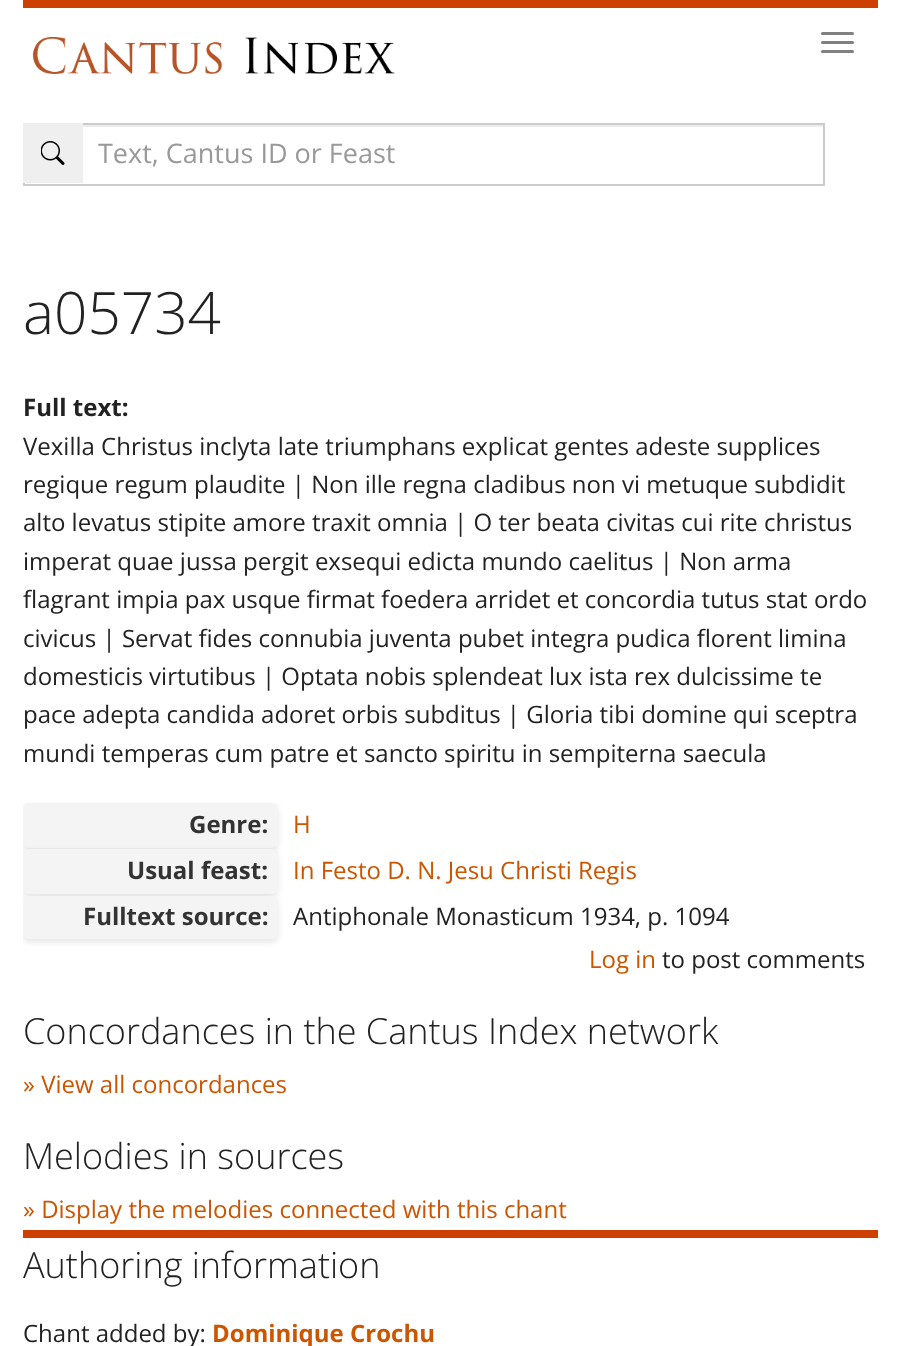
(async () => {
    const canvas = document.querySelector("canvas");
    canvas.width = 899;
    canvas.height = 1346;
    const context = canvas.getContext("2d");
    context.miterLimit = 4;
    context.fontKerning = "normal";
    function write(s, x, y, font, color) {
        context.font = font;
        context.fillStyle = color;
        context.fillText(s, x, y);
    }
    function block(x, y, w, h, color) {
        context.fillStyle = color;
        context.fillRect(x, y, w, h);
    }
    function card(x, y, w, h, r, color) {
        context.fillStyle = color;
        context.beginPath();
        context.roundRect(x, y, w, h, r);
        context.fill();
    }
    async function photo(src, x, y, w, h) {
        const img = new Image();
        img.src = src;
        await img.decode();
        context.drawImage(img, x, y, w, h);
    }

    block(0, 0, 899, 1346, "rgb(255, 255, 255)");
    block(23, 0, 855, 8, "rgb(206, 64, 0)");
    await photo("media/1.png", 32, 36, 363, 38);
    card(821, 32, 33, 3, 1.5, "rgb(128, 128, 128)");
    card(821, 41, 33, 3, 1.5, "rgb(128, 128, 128)");
    card(821, 50, 33, 3, 1.5, "rgb(128, 128, 128)");
    block(83, 125, 741, 2, "rgb(236, 236, 236)");
    context.strokeStyle = "rgb(204, 204, 204)";
    context.lineWidth = 2;
    context.strokeRect(24, 124, 800, 61);
    block(23, 123, 60, 60, "rgb(239, 239, 239)");
    await photo("media/2.png", 41, 141, 24, 24);
    context.save();
    context.beginPath();
    context.rect(98, 135, 718, 36);
    context.clip();
    write("Text, Cantus ID or Feast", 98, 163, "27px Open Sans", "rgb(153, 153, 153)");
    context.restore();
    write("a05734", 23, 334, "300 58.5px Open Sans", "rgb(34, 34, 34)");
    write("Full text:", 23, 416, "bold 24px Open Sans", "rgb(34, 34, 34)");
    write("Vexilla Christus inclyta late triumphans explicat gentes adeste supplices", 23, 455, "24px Open Sans", "rgb(34, 34, 34)");
    write("regique regum plaudite | Non ille regna cladibus non vi metuque subdidit", 23, 493, "24px Open Sans", "rgb(34, 34, 34)");
    write("alto levatus stipite amore traxit omnia | O ter beata civitas cui rite christus", 23, 531, "24px Open Sans", "rgb(34, 34, 34)");
    write("imperat quae jussa pergit exsequi edicta mundo caelitus | Non arma", 23, 570, "24px Open Sans", "rgb(34, 34, 34)");
    write("flagrant impia pax usque firmat foedera arridet et concordia tutus stat ordo", 23, 608, "24px Open Sans", "rgb(34, 34, 34)");
    write("civicus | Servat fides connubia juventa pubet integra pudica florent limina", 23, 647, "24px Open Sans", "rgb(34, 34, 34)");
    write("domesticis virtutibus | Optata nobis splendeat lux ista rex dulcissime te", 23, 685, "24px Open Sans", "rgb(34, 34, 34)");
    write("pace adepta candida adoret orbis subditus | Gloria tibi domine qui sceptra", 23, 723, "24px Open Sans", "rgb(34, 34, 34)");
    write("mundi temperas cum patre et sancto spiritu in sempiterna saecula", 23, 762, "24px Open Sans", "rgb(34, 34, 34)");
    context.save();
    context.beginPath();
    context.rect(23, 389, 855, 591);
    context.clip();
    context.fillStyle = "rgba(0, 0, 0, 0.1)";
    context.filter = "blur(3px)";
    context.beginPath();
    context.roundRect(23, 806, 255, 45, 6);
    context.fill();
    context.filter = "none";
    context.restore();
    card(23, 803, 255, 45, 6, "rgb(244, 244, 244)");
    write("Genre:", 189, 833, "bold 24px Open Sans", "rgb(51, 51, 51)");
    write("H", 293, 833, "24px Open Sans", "rgb(204, 85, 0)");
    context.save();
    context.beginPath();
    context.rect(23, 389, 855, 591);
    context.clip();
    context.fillStyle = "rgba(0, 0, 0, 0.1)";
    context.filter = "blur(3px)";
    context.beginPath();
    context.roundRect(23, 852, 255, 45, 6);
    context.fill();
    context.filter = "none";
    context.restore();
    card(23, 849, 255, 45, 6, "rgb(244, 244, 244)");
    write("Usual feast:", 127, 879, "bold 24px Open Sans", "rgb(51, 51, 51)");
    write("In Festo D. N. Jesu Christi Regis", 293, 879, "24px Open Sans", "rgb(204, 85, 0)");
    context.save();
    context.beginPath();
    context.rect(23, 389, 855, 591);
    context.clip();
    context.fillStyle = "rgba(0, 0, 0, 0.1)";
    context.filter = "blur(3px)";
    context.beginPath();
    context.roundRect(23, 899, 255, 43, 6);
    context.fill();
    context.filter = "none";
    context.restore();
    card(23, 896, 255, 43, 6, "rgb(244, 244, 244)");
    write("Fulltext source:", 83, 925, "bold 24px Open Sans", "rgb(51, 51, 51)");
    write("Antiphonale Monasticum 1934, p. 1094", 293, 925, "24px Open Sans", "rgb(34, 34, 34)");
    write("Log in", 589, 968, "24px Open Sans", "rgb(204, 85, 0)");
    write("to post comments", 662, 968, "24px Open Sans", "rgb(34, 34, 34)");
    write("Concordances in the Cantus Index network", 23, 1044, "300 36px Open Sans", "rgb(34, 34, 34)");
    write("» View all concordances", 23, 1093, "24px Open Sans", "rgb(204, 85, 0)");
    write("Melodies in sources", 23, 1169, "300 36px Open Sans", "rgb(34, 34, 34)");
    write("» Display the melodies connected with this chant", 23, 1218, "24px Open Sans", "rgb(204, 85, 0)");
    block(23, 1230, 855, 8, "rgb(206, 64, 0)");
    write("Authoring information", 23, 1278, "300 36px Open Sans", "rgb(34, 34, 34)");
    write("Chant added by:", 23, 1342, "24px Open Sans", "rgb(34, 34, 34)");
    write("Dominique Crochu", 212, 1342, "bold 24px Open Sans", "rgb(204, 85, 0)");
})();
